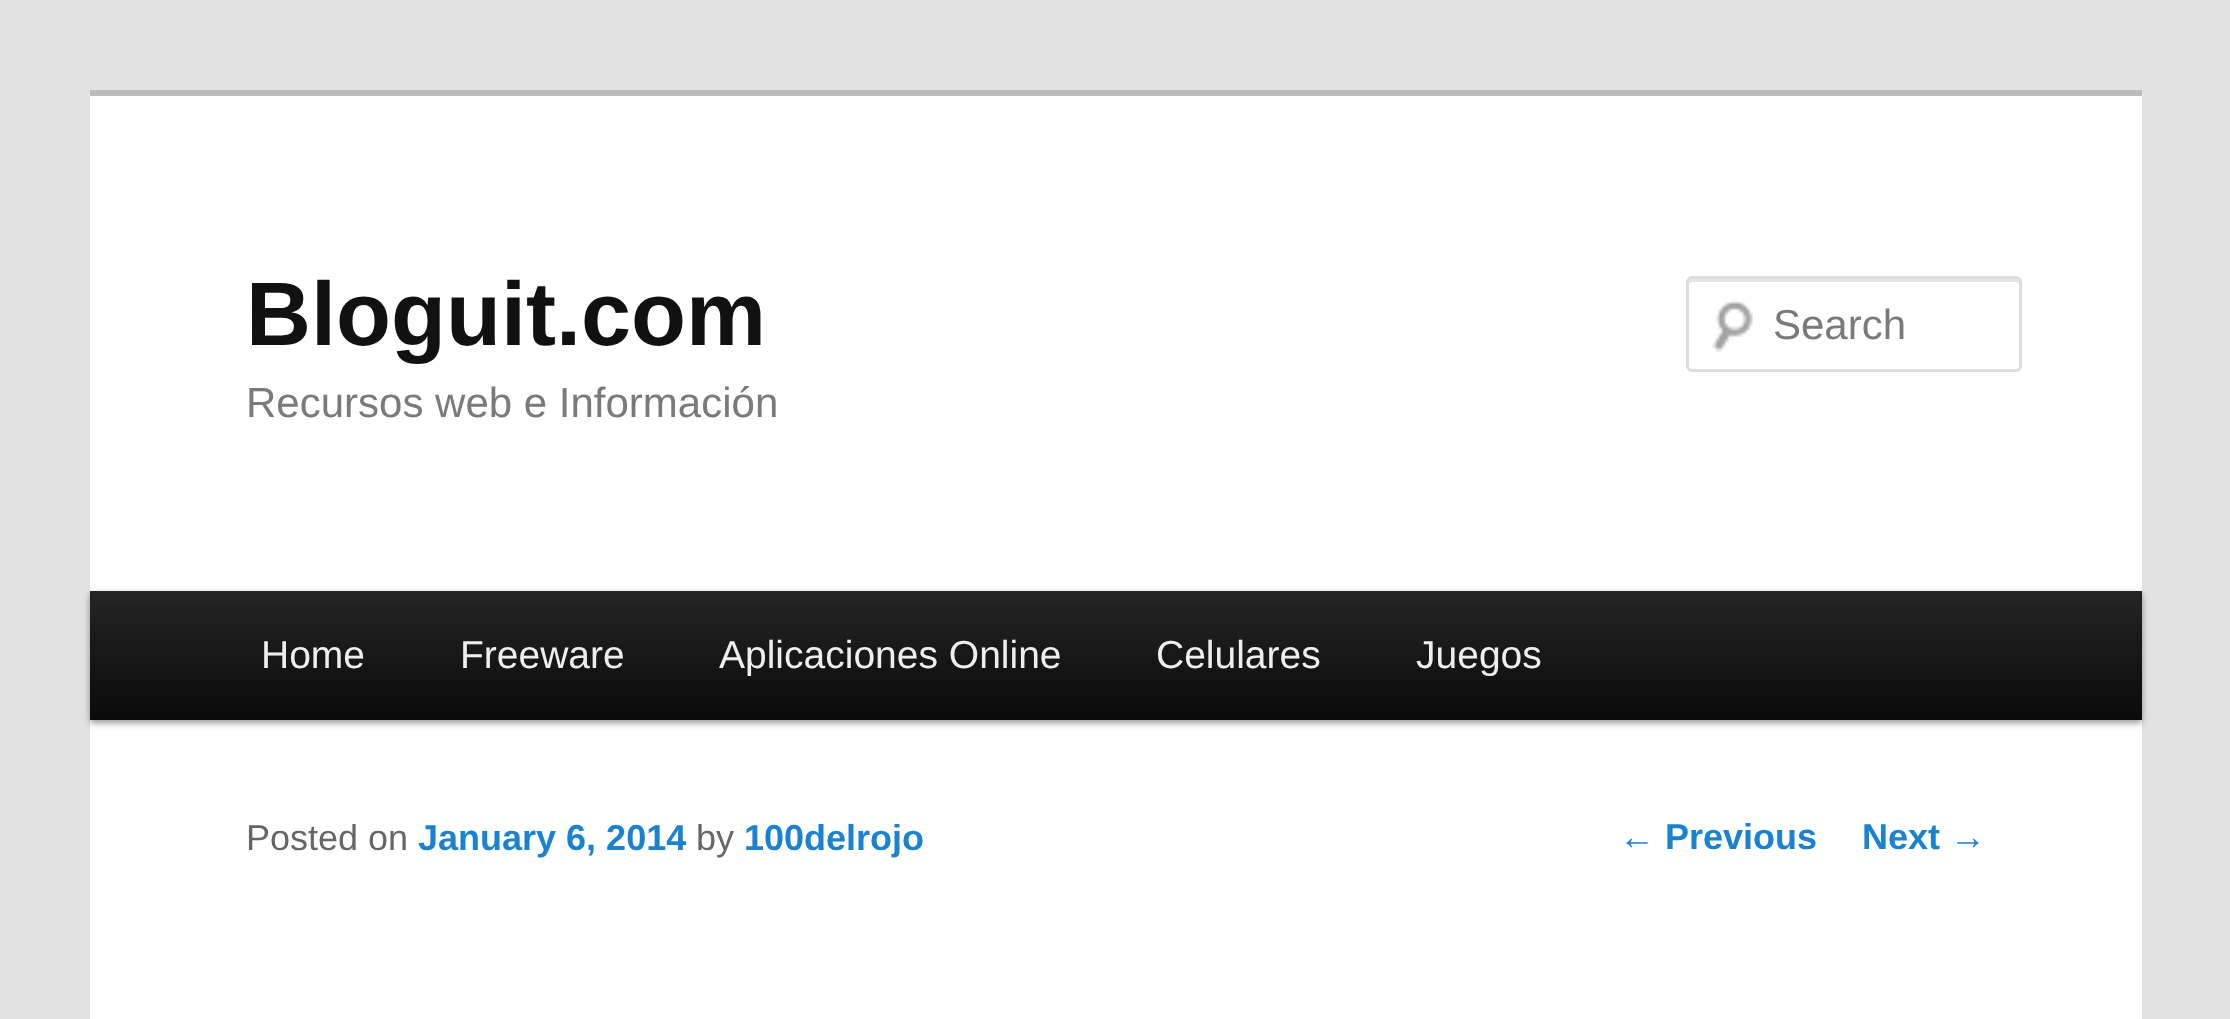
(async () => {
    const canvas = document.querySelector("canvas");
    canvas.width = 2230;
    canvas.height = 1019;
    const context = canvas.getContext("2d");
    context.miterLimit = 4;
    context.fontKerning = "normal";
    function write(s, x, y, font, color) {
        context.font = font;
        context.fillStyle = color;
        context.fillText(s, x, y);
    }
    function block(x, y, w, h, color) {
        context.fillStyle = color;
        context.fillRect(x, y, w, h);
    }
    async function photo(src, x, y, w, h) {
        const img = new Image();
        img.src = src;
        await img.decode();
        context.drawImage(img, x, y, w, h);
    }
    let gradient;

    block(0, 0, 2230, 1019, "rgb(226, 226, 226)");
    block(90, 96, 2052, 923, "rgb(255, 255, 255)");
    block(90, 90, 2052, 6, "rgb(187, 187, 187)");
    write("Bloguit.com", 246, 345, "bold 90px Liberation Sans", "rgb(17, 17, 17)");
    write("Recursos web e Información", 246, 417, "42px Liberation Sans", "rgb(122, 122, 122)");
    await photo("media/1.png", 1712, 300, 41, 52);
    context.fillStyle = "rgb(230, 230, 230)";
    context.beginPath();
    context.moveTo(1692, 282);
    context.lineTo(2016, 282);
    context.bezierCurveTo(2018, 282, 2019, 283, 2019, 285);
    context.lineTo(2019, 282);
    context.bezierCurveTo(2019, 280, 2018, 279, 2016, 279);
    context.lineTo(1692, 279);
    context.bezierCurveTo(1690, 279, 1689, 280, 1689, 282);
    context.lineTo(1689, 285);
    context.bezierCurveTo(1689, 283, 1690, 282, 1692, 282);
    context.closePath();
    context.fill();
    context.beginPath();
    context.roundRect(1687.5, 277.5, 333, 93, 4.5);
    context.strokeStyle = "rgb(221, 221, 221)";
    context.lineWidth = 3;
    context.stroke();
    write("Search", 1773, 339, "42px Liberation Sans", "rgb(122, 122, 122)");
    context.fillStyle = "rgba(0, 0, 0, 0.4)";
    context.filter = "blur(3px)";
    context.beginPath();
    context.rect(90, 594, 2052, 129);
    context.fill();
    context.filter = "none";
    gradient = context.createLinearGradient(1116, 591, 1116, 720);
    gradient.addColorStop(0, "rgb(37, 37, 37)");
    gradient.addColorStop(1, "rgb(10, 10, 10)");
    context.fillStyle = gradient;
    context.fillRect(90, 591, 2052, 129);
    write("Home", 261, 668, "39px Liberation Sans", "rgb(238, 238, 238)");
    write("Freeware", 460, 668, "39px Liberation Sans", "rgb(238, 238, 238)");
    write("Aplicaciones Online", 719, 668, "39px Liberation Sans", "rgb(238, 238, 238)");
    write("Celulares", 1156, 668, "39px Liberation Sans", "rgb(238, 238, 238)");
    write("Juegos", 1416, 668, "39px Liberation Sans", "rgb(238, 238, 238)");
    write("Posted on", 246, 850, "36px Liberation Sans", "rgb(102, 102, 102)");
    write("January 6, 2014", 418, 850, "bold 36px Liberation Sans", "rgb(25, 130, 209)");
    write("by", 696, 850, "36px Liberation Sans", "rgb(102, 102, 102)");
    write("100delrojo", 744, 850, "bold 36px Liberation Sans", "rgb(25, 130, 209)");
    write("←", 1619, 849, "36px Liberation Sans", "rgb(25, 130, 209)");
    write("Previous", 1665, 849, "bold 36px Liberation Sans", "rgb(25, 130, 209)");
    write("Next", 1862, 849, "bold 36px Liberation Sans", "rgb(25, 130, 209)");
    write("→", 1950, 849, "36px Liberation Sans", "rgb(25, 130, 209)");
})();
